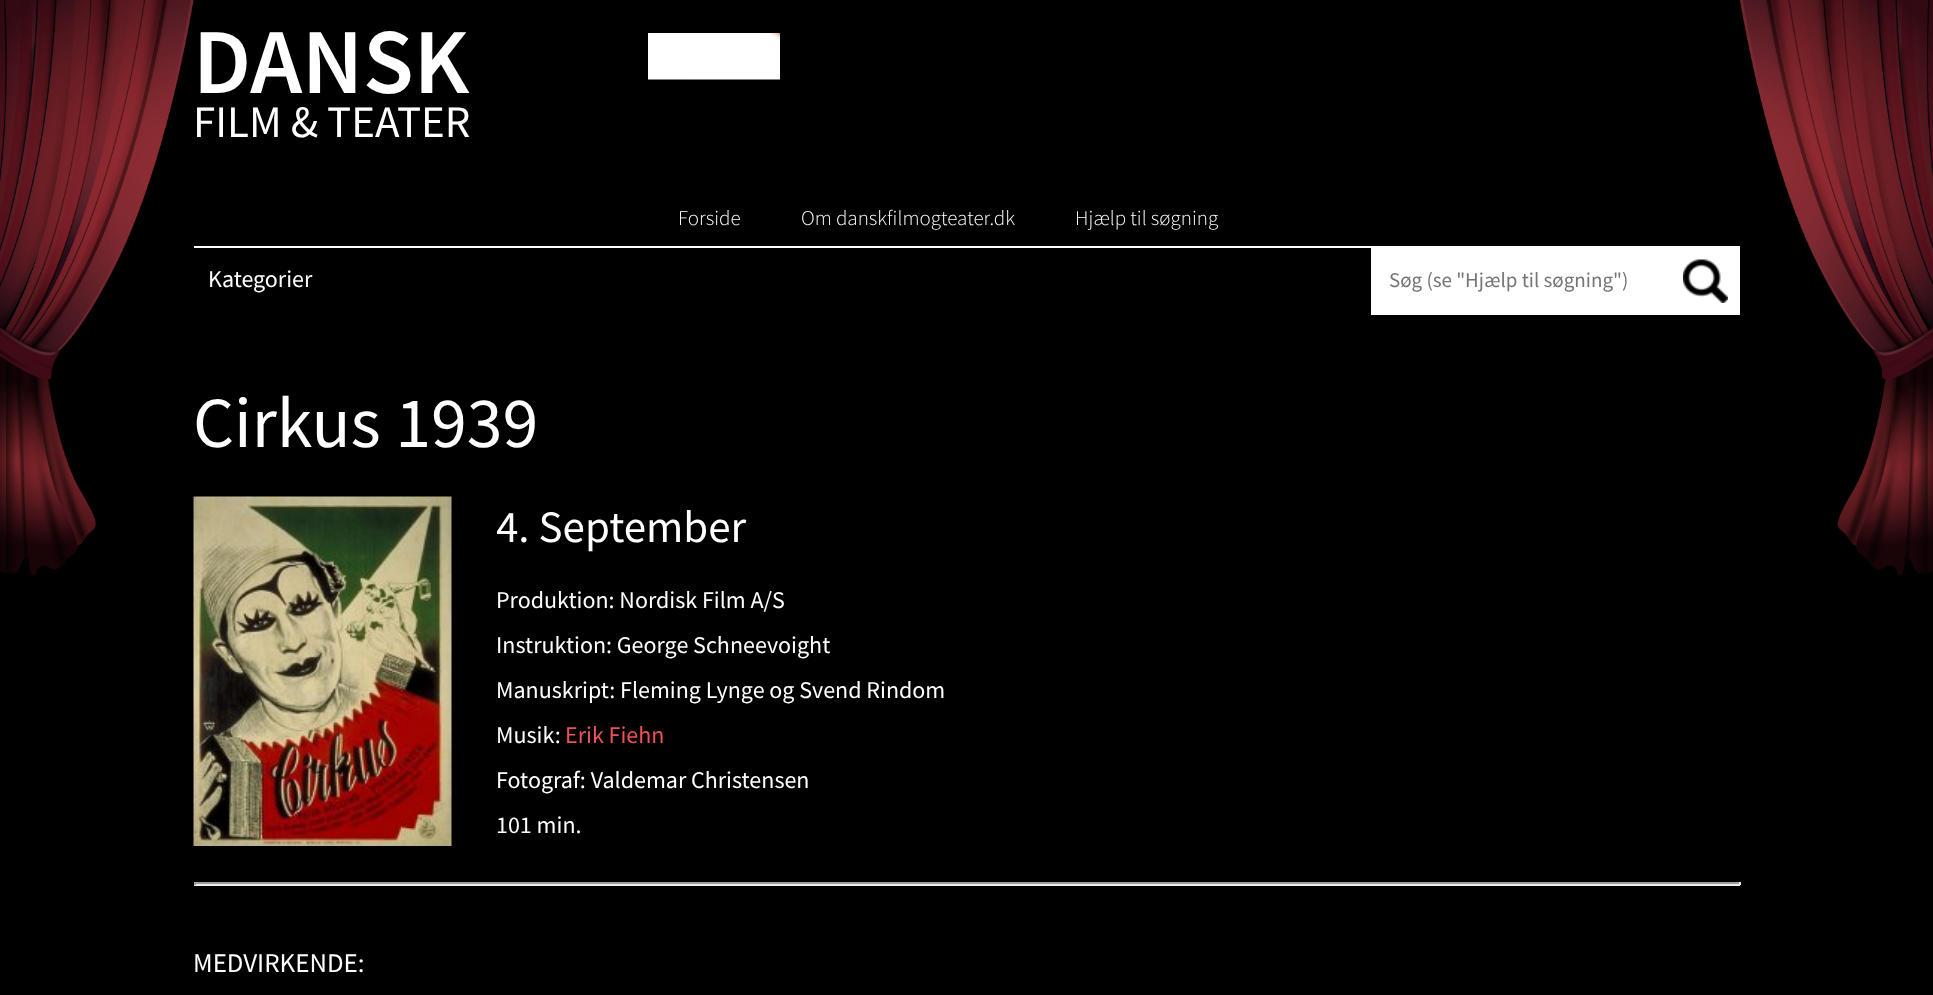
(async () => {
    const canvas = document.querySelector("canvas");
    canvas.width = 1933;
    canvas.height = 995;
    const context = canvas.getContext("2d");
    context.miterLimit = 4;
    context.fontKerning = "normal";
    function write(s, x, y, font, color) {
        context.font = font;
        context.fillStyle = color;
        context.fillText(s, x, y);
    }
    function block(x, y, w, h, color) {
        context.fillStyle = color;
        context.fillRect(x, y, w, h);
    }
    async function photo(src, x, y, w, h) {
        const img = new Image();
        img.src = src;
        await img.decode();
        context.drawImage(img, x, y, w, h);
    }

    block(0, 0, 1933, 995, "rgb(0, 0, 0)");
    await photo("media/5.png", 193, 496, 259, 350);
    await photo("media/1.png", 0, 0, 194, 576);
    block(194, 246, 1546, 2, "rgb(255, 255, 255)");
    write("DANSK", 193, 93, "600 93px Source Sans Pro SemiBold", "rgb(255, 255, 255)");
    write("FILM & TEATER", 193, 137, "45px Source Sans Pro", "rgb(255, 255, 255)");
    await photo("media/2.png", 648, 33, 132, 47);
    write("Forside", 678, 225, "300 21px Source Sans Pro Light", "rgb(255, 255, 255)");
    write("Om danskfilmogteater.dk", 801, 225, "300 21px Source Sans Pro Light", "rgb(255, 255, 255)");
    write("Hjælp til søgning", 1075, 225, "300 21px Source Sans Pro Light", "rgb(255, 255, 255)");
    write("Kategorier", 208, 287, "24px Source Sans Pro", "rgb(255, 255, 255)");
    block(1371, 248, 369, 67, "rgb(255, 255, 255)");
    write("Søg (se \"Hjælp til søgning\")", 1389, 287, "21px Source Sans Pro", "rgb(117, 117, 117)");
    await photo("media/3.png", 1683, 259, 45, 44);
    await photo("media/4.png", 1740, 0, 193, 576);
    write("Cirkus 1939", 193, 447, "72px Source Sans Pro", "rgb(255, 255, 255)");
    context.save();
    context.beginPath();
    context.rect(497, 497, 1243, 57);
    context.clip();
    write("4. September", 496, 542, "45px Source Sans Pro", "rgb(255, 255, 255)");
    context.restore();
    write("Produktion: Nordisk Film A/S", 496, 608, "24px Source Sans Pro", "rgb(255, 255, 255)");
    write("Instruktion: George Schneevoight", 496, 653, "24px Source Sans Pro", "rgb(255, 255, 255)");
    write("Manuskript: Fleming Lynge og Svend Rindom", 496, 698, "24px Source Sans Pro", "rgb(255, 255, 255)");
    write("Musik:", 496, 743, "24px Source Sans Pro", "rgb(255, 255, 255)");
    write("Erik Fiehn", 565, 743, "24px Source Sans Pro", "rgb(239, 81, 87)");
    write("Fotograf: Valdemar Christensen", 496, 788, "24px Source Sans Pro", "rgb(255, 255, 255)");
    write("101 min.", 496, 833, "24px Source Sans Pro", "rgb(255, 255, 255)");
    block(194, 882, 1546, 2, "rgb(159, 159, 159)");
    block(1739, 882, 2, 3, "rgb(238, 238, 238)");
    block(194, 884, 1546, 2, "rgb(238, 238, 238)");
    block(194, 882, 2, 3, "rgb(159, 159, 159)");
    write("MEDVIRKENDE:", 193, 972, "27px Source Sans Pro", "rgb(255, 255, 255)");
})();
